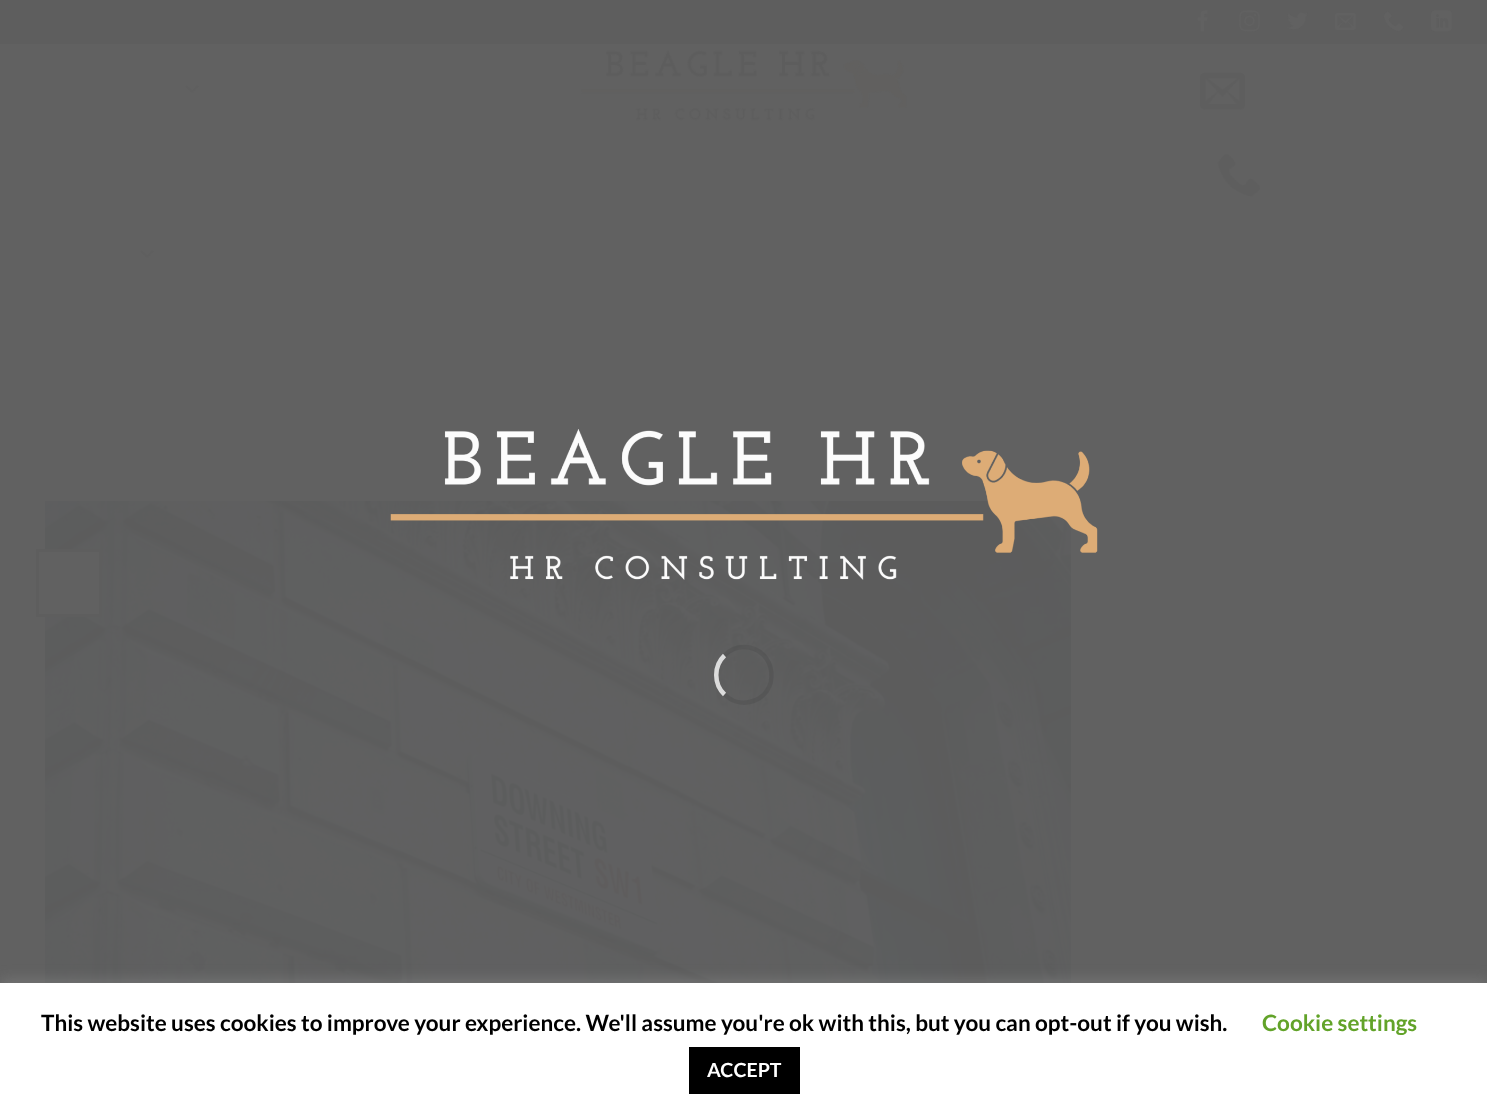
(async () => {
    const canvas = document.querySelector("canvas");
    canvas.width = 1487;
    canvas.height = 1118;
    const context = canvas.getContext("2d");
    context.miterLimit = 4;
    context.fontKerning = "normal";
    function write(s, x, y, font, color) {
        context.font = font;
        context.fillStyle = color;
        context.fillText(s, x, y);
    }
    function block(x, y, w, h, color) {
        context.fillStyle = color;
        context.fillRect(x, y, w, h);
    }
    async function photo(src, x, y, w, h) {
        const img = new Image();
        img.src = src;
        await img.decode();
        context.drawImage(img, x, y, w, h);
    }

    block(0, 0, 1487, 1118, "rgb(97, 97, 97)");
    block(0, 0, 1487, 44, "rgb(94, 94, 94)");
    await photo("media/1.png", 1197, 10, 11, 22);
    await photo("media/2.png", 1239, 10, 21, 22);
    await photo("media/3.png", 1287, 12, 21, 18);
    await photo("media/4.png", 1335, 13, 21, 17);
    await photo("media/5.png", 1383, 11, 21, 21);
    await photo("media/6.png", 1431, 10, 21, 22);
    await photo("media/7.png", 185, 85, 14, 8);
    await photo("media/7.png", 140, 250, 14, 8);
    await photo("media/8.png", 581, 50, 327, 71);
    await photo("media/9.png", 1200, 72, 45, 38);
    await photo("media/10.png", 1217, 154, 43, 43);
    await photo("media/12.png", 45, 501, 1026, 482);
    await photo("media/11.png", 390, 429, 708, 151);
    context.beginPath();
    context.moveTo(724.5, 655.5);
    context.bezierCurveTo(729.5, 650, 736.5, 647, 744, 647);
    context.bezierCurveTo(777, 647.5, 782, 695.5, 749.5, 702);
    context.bezierCurveTo(740.5, 704, 731, 701, 724.5, 694.5);
    context.strokeStyle = "rgba(0, 0, 0, 0.08)";
    context.lineWidth = 4.5;
    context.stroke();
    context.beginPath();
    context.moveTo(724.5, 694.5);
    context.bezierCurveTo(713.5, 684, 713.5, 666, 724.5, 655.5);
    context.strokeStyle = "rgba(255, 255, 255, 0.78)";
    context.stroke();
    block(45, 552, 54, 62, "rgb(97, 97, 97)");
    context.strokeStyle = "rgb(94, 94, 94)";
    context.lineWidth = 3;
    context.strokeRect(37.5, 550.5, 63, 65);
    context.fillStyle = "rgba(172, 171, 171, 0.3)";
    context.filter = "blur(7.5px)";
    context.beginPath();
    context.rect(0, 981, 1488, 137);
    context.fill();
    context.filter = "none";
    block(0, 983, 1487, 135, "rgb(255, 255, 255)");
    write("This website uses cookies to improve your experience. We'll assume you're ok with this, but you can opt-out if you wish.", 41, 1031, "bold 22.5px Lato", "rgb(0, 0, 0)");
    write("Cookie settings", 1262, 1031, "bold 22.5px Lato", "rgb(98, 163, 41)");
    block(689, 1047, 111, 47, "rgb(0, 0, 0)");
    write("ACCEPT", 707, 1077, "bold 19.5px Lato", "rgb(255, 255, 255)");
})();
